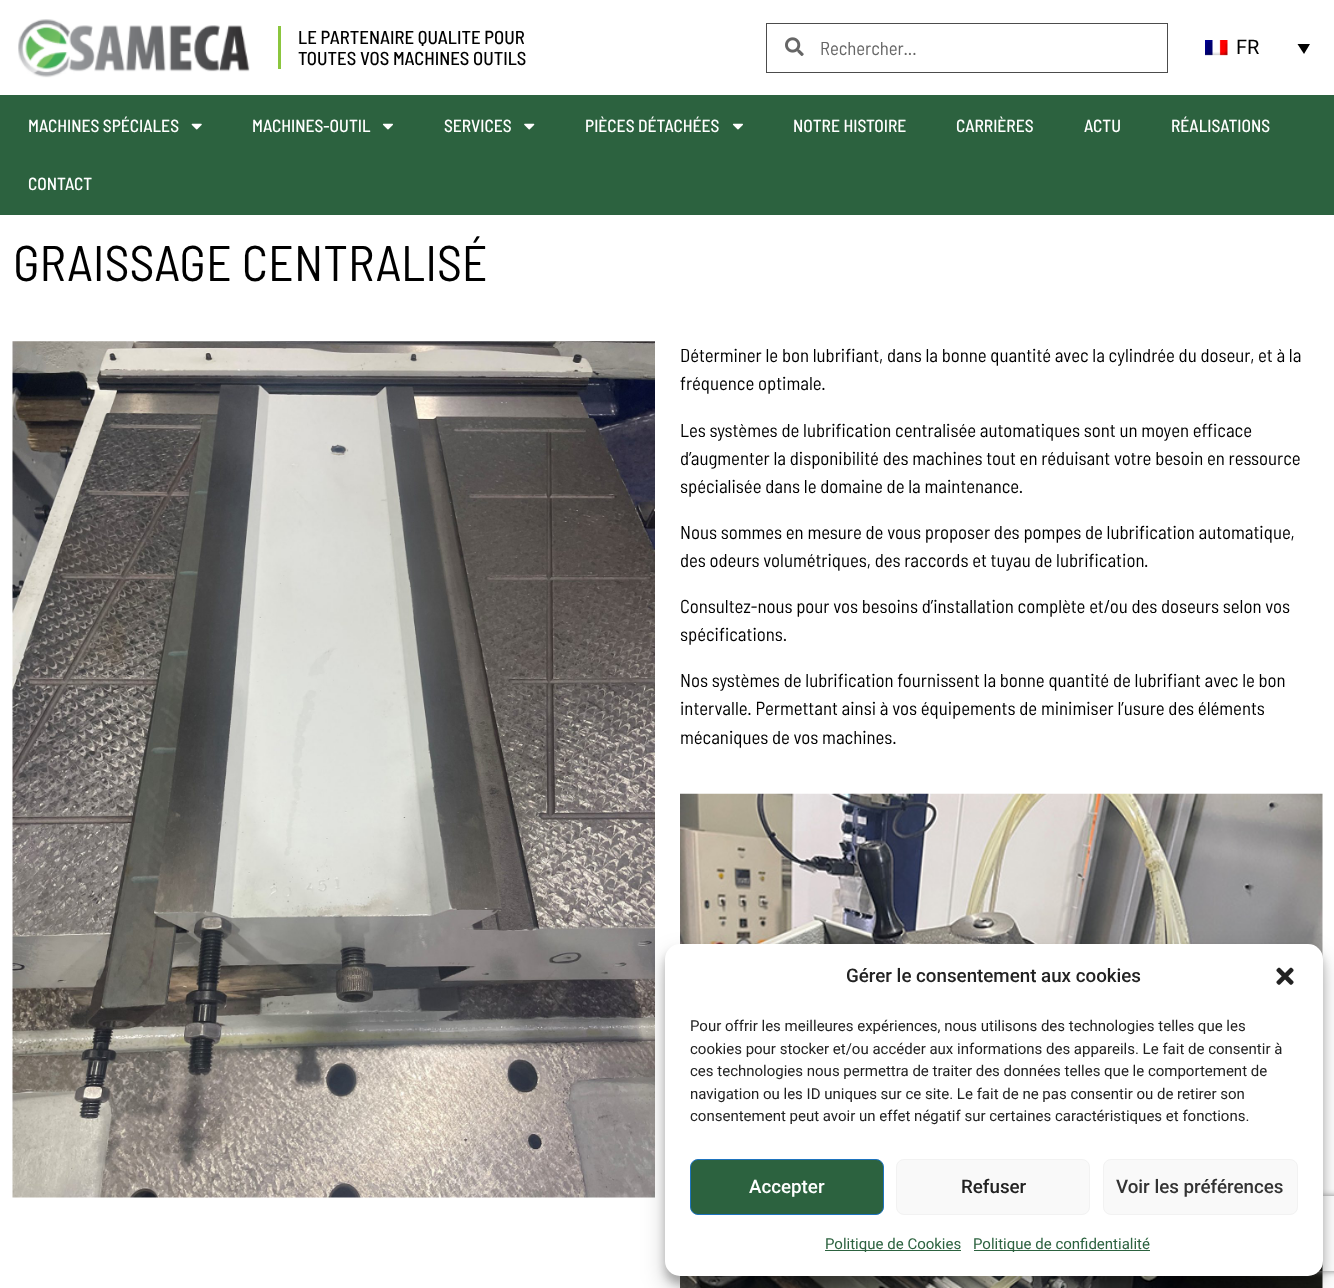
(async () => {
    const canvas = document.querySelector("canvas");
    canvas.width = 1334;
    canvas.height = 1288;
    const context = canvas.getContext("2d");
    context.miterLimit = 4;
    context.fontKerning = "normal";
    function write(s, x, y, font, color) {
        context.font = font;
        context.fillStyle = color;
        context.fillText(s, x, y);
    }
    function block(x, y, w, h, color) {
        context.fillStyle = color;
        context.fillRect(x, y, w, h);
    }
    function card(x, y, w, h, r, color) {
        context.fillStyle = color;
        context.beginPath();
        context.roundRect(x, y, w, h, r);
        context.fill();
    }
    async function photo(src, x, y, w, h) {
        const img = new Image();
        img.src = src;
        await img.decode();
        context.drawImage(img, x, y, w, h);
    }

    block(0, 0, 1334, 1288, "rgb(255, 255, 255)");
    await photo("media/1.png", 18, 19, 232, 59);
    block(278, 26, 3, 43, "rgb(139, 198, 62)");
    write("LE PARTENAIRE QUALITE POUR", 298, 44, "500 18.75px Barlow Semi Condensed", "rgb(0, 0, 0)");
    write("TOUTES VOS MACHINES OUTILS", 298, 65, "500 18.75px Barlow Semi Condensed", "rgb(0, 0, 0)");
    context.strokeStyle = "rgb(76, 76, 76)";
    context.strokeRect(766.5, 23.5, 401, 49);
    await photo("media/2.png", 785, 37, 19, 19);
    write("Rechercher...", 820, 55, "18.75px Barlow Semi Condensed", "rgb(102, 102, 102)");
    await photo("media/3.png", 1205, 40, 23, 16);
    write("FR", 1236, 54, "20px Roboto", "rgb(0, 0, 0)");
    context.beginPath();
    context.moveTo(1297.5, 44);
    context.lineTo(1310, 44);
    context.lineTo(1304, 54);
    context.closePath();
    context.fill();
    block(0, 95, 1334, 120, "rgb(44, 98, 63)");
    write("MACHINES SPÉCIALES", 28, 132, "500 17.5px Barlow Semi Condensed", "rgb(255, 255, 255)");
    await photo("media/4.png", 191, 123, 11, 7);
    write("MACHINES-OUTIL", 252, 132, "500 17.5px Barlow Semi Condensed", "rgb(255, 255, 255)");
    await photo("media/5.png", 382, 123, 11, 7);
    write("SERVICES", 444, 132, "500 17.5px Barlow Semi Condensed", "rgb(255, 255, 255)");
    await photo("media/6.png", 524, 123, 11, 7);
    write("PIÈCES DÉTACHÉES", 585, 132, "500 17.5px Barlow Semi Condensed", "rgb(255, 255, 255)");
    await photo("media/5.png", 732, 123, 11, 7);
    write("NOTRE HISTOIRE", 793, 132, "500 17.5px Barlow Semi Condensed", "rgb(255, 255, 255)");
    write("CARRIÈRES", 956, 132, "500 17.5px Barlow Semi Condensed", "rgb(255, 255, 255)");
    write("ACTU", 1084, 132, "500 17.5px Barlow Semi Condensed", "rgb(255, 255, 255)");
    write("RÉALISATIONS", 1171, 132, "500 17.5px Barlow Semi Condensed", "rgb(255, 255, 255)");
    write("CONTACT", 28, 190, "500 17.5px Barlow Semi Condensed", "rgb(255, 255, 255)");
    write("GRAISSAGE CENTRALISÉ", 13, 281, "50px Barlow Semi Condensed", "rgb(0, 0, 0)");
    await photo("media/7.png", 12, 341, 643, 857);
    write("Déterminer le bon lubrifiant, dans la bonne quantité avec la cylindrée du doseur, et à la", 680, 362, "18.75px Barlow Semi Condensed", "rgb(0, 0, 0)");
    write("fréquence optimale.", 680, 390, "18.75px Barlow Semi Condensed", "rgb(0, 0, 0)");
    write("Les systèmes de lubrification centralisée automatiques sont un moyen efficace", 680, 437, "18.75px Barlow Semi Condensed", "rgb(0, 0, 0)");
    write("d’augmenter la disponibilité des machines tout en réduisant votre besoin en ressource", 680, 465, "18.75px Barlow Semi Condensed", "rgb(0, 0, 0)");
    write("spécialisée dans le domaine de la maintenance.", 680, 493, "18.75px Barlow Semi Condensed", "rgb(0, 0, 0)");
    write("Nous sommes en mesure de vous proposer des pompes de lubrification automatique,", 680, 539, "18.75px Barlow Semi Condensed", "rgb(0, 0, 0)");
    write("des odeurs volumétriques, des raccords et tuyau de lubrification.", 680, 567, "18.75px Barlow Semi Condensed", "rgb(0, 0, 0)");
    write("Consultez-nous pour vos besoins d’installation complète et/ou des doseurs selon vos", 680, 613, "18.75px Barlow Semi Condensed", "rgb(0, 0, 0)");
    write("spécifications.", 680, 641, "18.75px Barlow Semi Condensed", "rgb(0, 0, 0)");
    write("Nos systèmes de lubrification fournissent la bonne quantité de lubrifiant avec le bon", 680, 687, "18.75px Barlow Semi Condensed", "rgb(0, 0, 0)");
    write("intervalle. Permettant ainsi à vos équipements de minimiser l’usure des éléments", 680, 715, "18.75px Barlow Semi Condensed", "rgb(0, 0, 0)");
    write("mécaniques de vos machines.", 680, 744, "18.75px Barlow Semi Condensed", "rgb(0, 0, 0)");
    await photo("media/8.png", 680, 793, 643, 495);
    context.fillStyle = "rgba(0, 0, 0, 0.23)";
    context.filter = "blur(4px)";
    context.beginPath();
    context.roundRect(665, 951, 658, 333, 15);
    context.fill();
    context.filter = "none";
    context.fillStyle = "rgba(0, 0, 0, 0.19)";
    context.filter = "blur(12.5px)";
    context.beginPath();
    context.roundRect(665, 956, 658, 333, 15);
    context.fill();
    context.filter = "none";
    context.save();
    context.beginPath();
    context.moveTo(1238, 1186);
    context.lineTo(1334, 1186);
    context.lineTo(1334, 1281);
    context.lineTo(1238, 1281);
    context.closePath();
    context.moveTo(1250.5, 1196);
    context.lineTo(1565.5, 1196);
    context.bezierCurveTo(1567, 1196, 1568, 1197, 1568, 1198.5);
    context.lineTo(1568, 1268.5);
    context.bezierCurveTo(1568, 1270, 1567, 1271, 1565.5, 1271);
    context.lineTo(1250.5, 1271);
    context.bezierCurveTo(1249, 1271, 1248, 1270, 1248, 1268.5);
    context.lineTo(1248, 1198.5);
    context.bezierCurveTo(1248, 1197, 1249, 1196, 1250.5, 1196);
    context.closePath();
    context.clip("evenodd");
    context.fillStyle = "rgb(128, 128, 128)";
    context.filter = "blur(3px)";
    context.beginPath();
    context.roundRect(1248, 1196, 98, 75, 2.5);
    context.fill();
    context.filter = "none";
    context.restore();
    card(665, 944, 658, 332, 15, "rgb(255, 255, 255)");
    write("Gérer le consentement aux cookies", 846, 982, "500 18.75px Roboto", "rgb(34, 34, 34)");
    await photo("media/9.png", 1276, 967, 18, 18);
    write("Pour offrir les meilleures expériences, nous utilisons des technologies telles que les", 690, 1031, "15px Roboto", "rgb(34, 34, 34)");
    write("cookies pour stocker et/ou accéder aux informations des appareils. Le fait de consentir à", 690, 1054, "15px Roboto", "rgb(34, 34, 34)");
    write("ces technologies nous permettra de traiter des données telles que le comportement de", 690, 1076, "15px Roboto", "rgb(34, 34, 34)");
    write("navigation ou les ID uniques sur ce site. Le fait de ne pas consentir ou de retirer son", 690, 1099, "15px Roboto", "rgb(34, 34, 34)");
    write("consentement peut avoir un effet négatif sur certaines caractéristiques et fonctions.", 690, 1121, "15px Roboto", "rgb(34, 34, 34)");
    context.fillStyle = "rgb(44, 98, 63)";
    context.beginPath();
    context.roundRect(690.5, 1159.5, 193, 55, 7.5);
    context.fill();
    context.strokeStyle = "rgb(30, 115, 190)";
    context.stroke();
    write("Accepter", 749, 1193, "500 18.75px Roboto", "rgb(255, 255, 255)");
    context.fillStyle = "rgb(249, 249, 249)";
    context.beginPath();
    context.roundRect(896.5, 1159.5, 193, 55, 7.5);
    context.fill();
    context.strokeStyle = "rgb(242, 242, 242)";
    context.stroke();
    write("Refuser", 961, 1193, "500 18.75px Roboto", "rgb(34, 34, 34)");
    context.fillStyle = "rgb(249, 249, 249)";
    context.beginPath();
    context.roundRect(1103.5, 1159.5, 194, 55, 7.5);
    context.fill();
    context.stroke();
    write("Voir les préférences", 1116, 1193, "500 18.75px Roboto", "rgb(51, 51, 51)");
    block(825, 1250, 136, 1, "rgb(44, 98, 63)");
    write("Politique de Cookies", 825, 1249, "15px Roboto", "rgb(44, 98, 63)");
    block(974, 1250, 176, 1, "rgb(44, 98, 63)");
    write("Politique de confidentialité", 973, 1249, "15px Roboto", "rgb(44, 98, 63)");
})();
